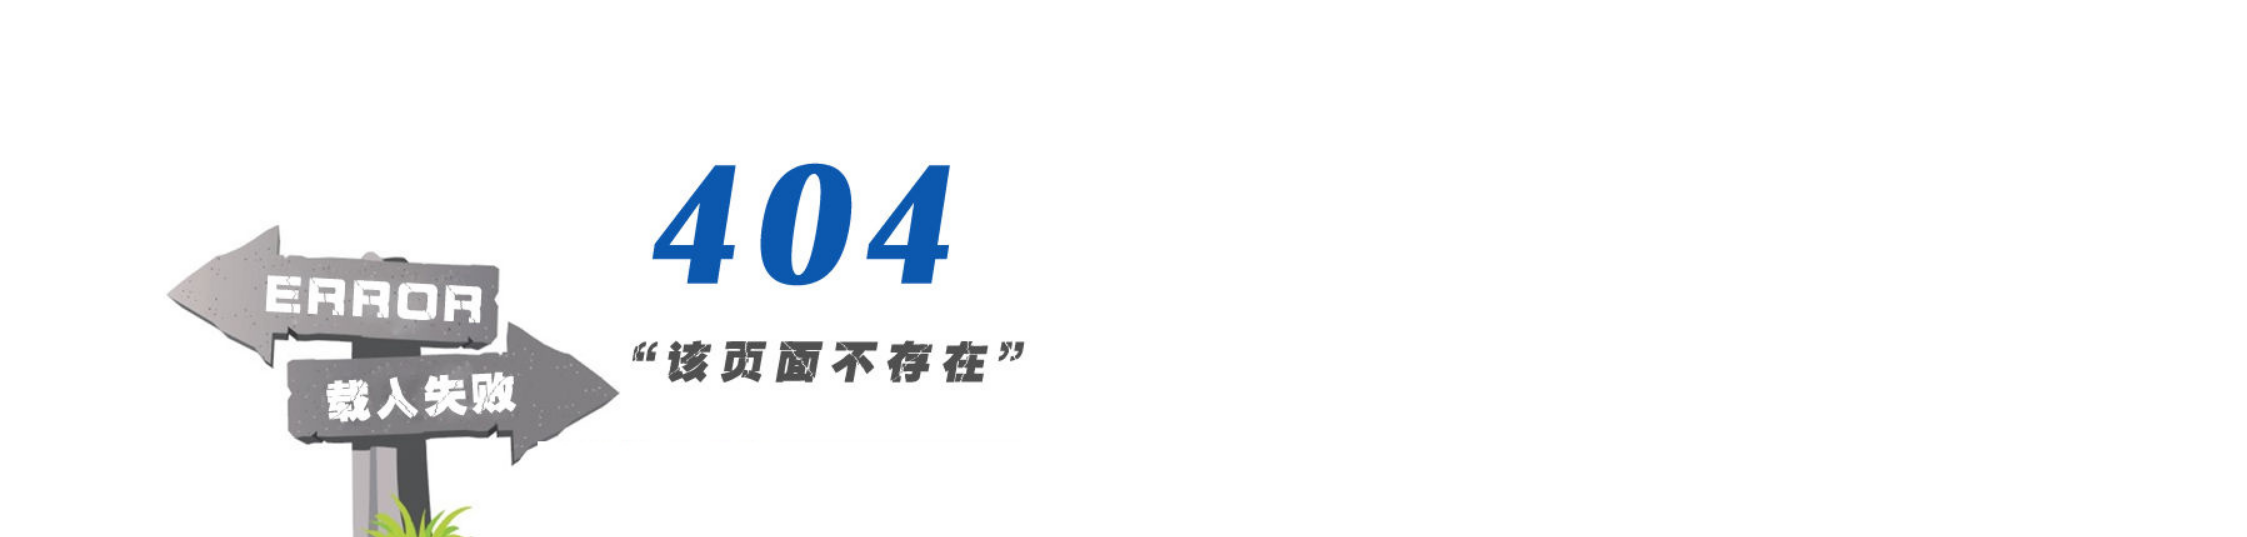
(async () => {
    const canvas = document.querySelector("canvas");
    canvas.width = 2247;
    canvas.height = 537;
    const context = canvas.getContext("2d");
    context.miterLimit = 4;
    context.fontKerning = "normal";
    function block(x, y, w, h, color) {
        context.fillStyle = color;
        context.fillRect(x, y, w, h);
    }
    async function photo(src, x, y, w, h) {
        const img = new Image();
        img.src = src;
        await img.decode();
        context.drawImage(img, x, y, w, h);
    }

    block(0, 0, 2247, 537, "rgb(255, 255, 255)");
    await photo("media/1.png", 163, 160, 867, 377);
})();
